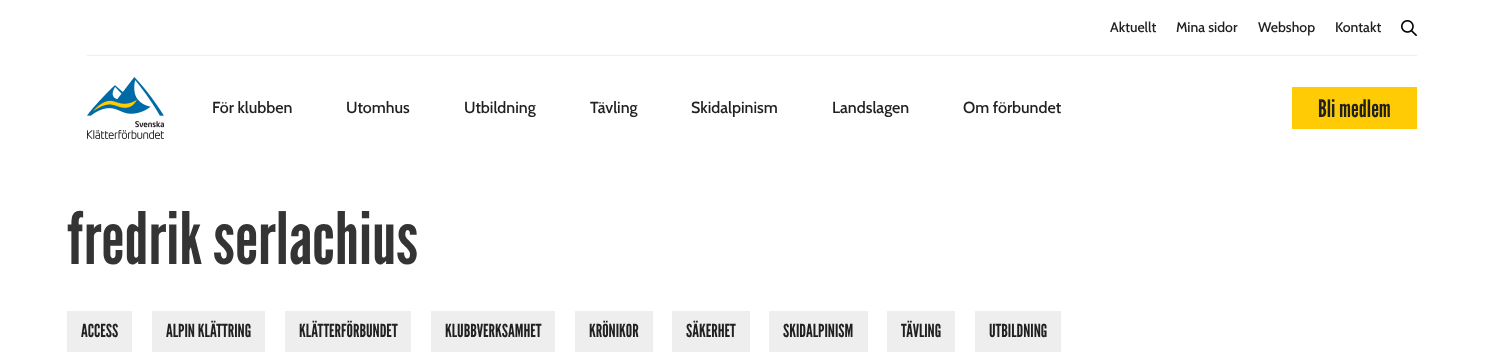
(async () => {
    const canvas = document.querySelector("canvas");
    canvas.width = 1504;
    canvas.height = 356;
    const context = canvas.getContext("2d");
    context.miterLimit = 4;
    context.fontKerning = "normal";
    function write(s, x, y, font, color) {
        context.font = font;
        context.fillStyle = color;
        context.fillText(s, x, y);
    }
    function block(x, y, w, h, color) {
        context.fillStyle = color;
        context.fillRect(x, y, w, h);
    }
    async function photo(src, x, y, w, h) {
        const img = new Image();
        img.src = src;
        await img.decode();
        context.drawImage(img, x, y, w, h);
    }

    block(0, 0, 1504, 356, "rgb(255, 255, 255)");
    write("Aktuellt", 1110, 32, "500 14px Cabin", "rgb(33, 33, 33)");
    write("Mina sidor", 1176, 32, "500 14px Cabin", "rgb(33, 33, 33)");
    write("Webshop", 1258, 32, "500 14px Cabin", "rgb(33, 33, 33)");
    write("Kontakt", 1335, 32, "500 14px Cabin", "rgb(33, 33, 33)");
    await photo("media/1.png", 1401, 20, 16, 16);
    block(87, 55, 1330, 1, "rgb(238, 238, 238)");
    await photo("media/2.png", 87, 77, 77, 62);
    write("För klubben", 212, 113, "500 16px Cabin", "rgb(33, 33, 33)");
    write("Utomhus", 346, 113, "500 16px Cabin", "rgb(33, 33, 33)");
    write("Utbildning", 464, 113, "500 16px Cabin", "rgb(33, 33, 33)");
    write("Tävling", 590, 113, "500 16px Cabin", "rgb(33, 33, 33)");
    write("Skidalpinism", 691, 113, "500 16px Cabin", "rgb(33, 33, 33)");
    write("Landslagen", 832, 113, "500 16px Cabin", "rgb(33, 33, 33)");
    write("Om förbundet", 963, 113, "500 16px Cabin", "rgb(33, 33, 33)");
    block(1292, 87, 125, 42, "rgb(255, 203, 5)");
    write("Bli medlem", 1318, 117, "24px League Gothic", "rgb(33, 33, 33)");
    write("fredrik serlachius", 67, 264, "72px League Gothic", "rgb(52, 52, 52)");
    block(67, 311, 65, 41, "rgb(238, 238, 238)");
    write("ACCESS", 81, 337, "18px League Gothic", "rgb(33, 33, 33)");
    block(152, 311, 113, 41, "rgb(238, 238, 238)");
    write("ALPIN KLÄTTRING", 166, 337, "18px League Gothic", "rgb(33, 33, 33)");
    block(285, 311, 126, 41, "rgb(238, 238, 238)");
    write("KLÄTTERFÖRBUNDET", 299, 337, "18px League Gothic", "rgb(33, 33, 33)");
    block(431, 311, 124, 41, "rgb(238, 238, 238)");
    write("KLUBBVERKSAMHET", 445, 337, "18px League Gothic", "rgb(33, 33, 33)");
    block(575, 311, 78, 41, "rgb(238, 238, 238)");
    write("KRÖNIKOR", 589, 337, "18px League Gothic", "rgb(33, 33, 33)");
    block(672, 311, 78, 41, "rgb(238, 238, 238)");
    write("SÄKERHET", 686, 337, "18px League Gothic", "rgb(33, 33, 33)");
    block(769, 311, 99, 41, "rgb(238, 238, 238)");
    write("SKIDALPINISM", 783, 337, "18px League Gothic", "rgb(33, 33, 33)");
    block(887, 311, 68, 41, "rgb(238, 238, 238)");
    write("TÄVLING", 901, 337, "18px League Gothic", "rgb(33, 33, 33)");
    block(975, 311, 86, 41, "rgb(238, 238, 238)");
    write("UTBILDNING", 989, 337, "18px League Gothic", "rgb(33, 33, 33)");
})();
